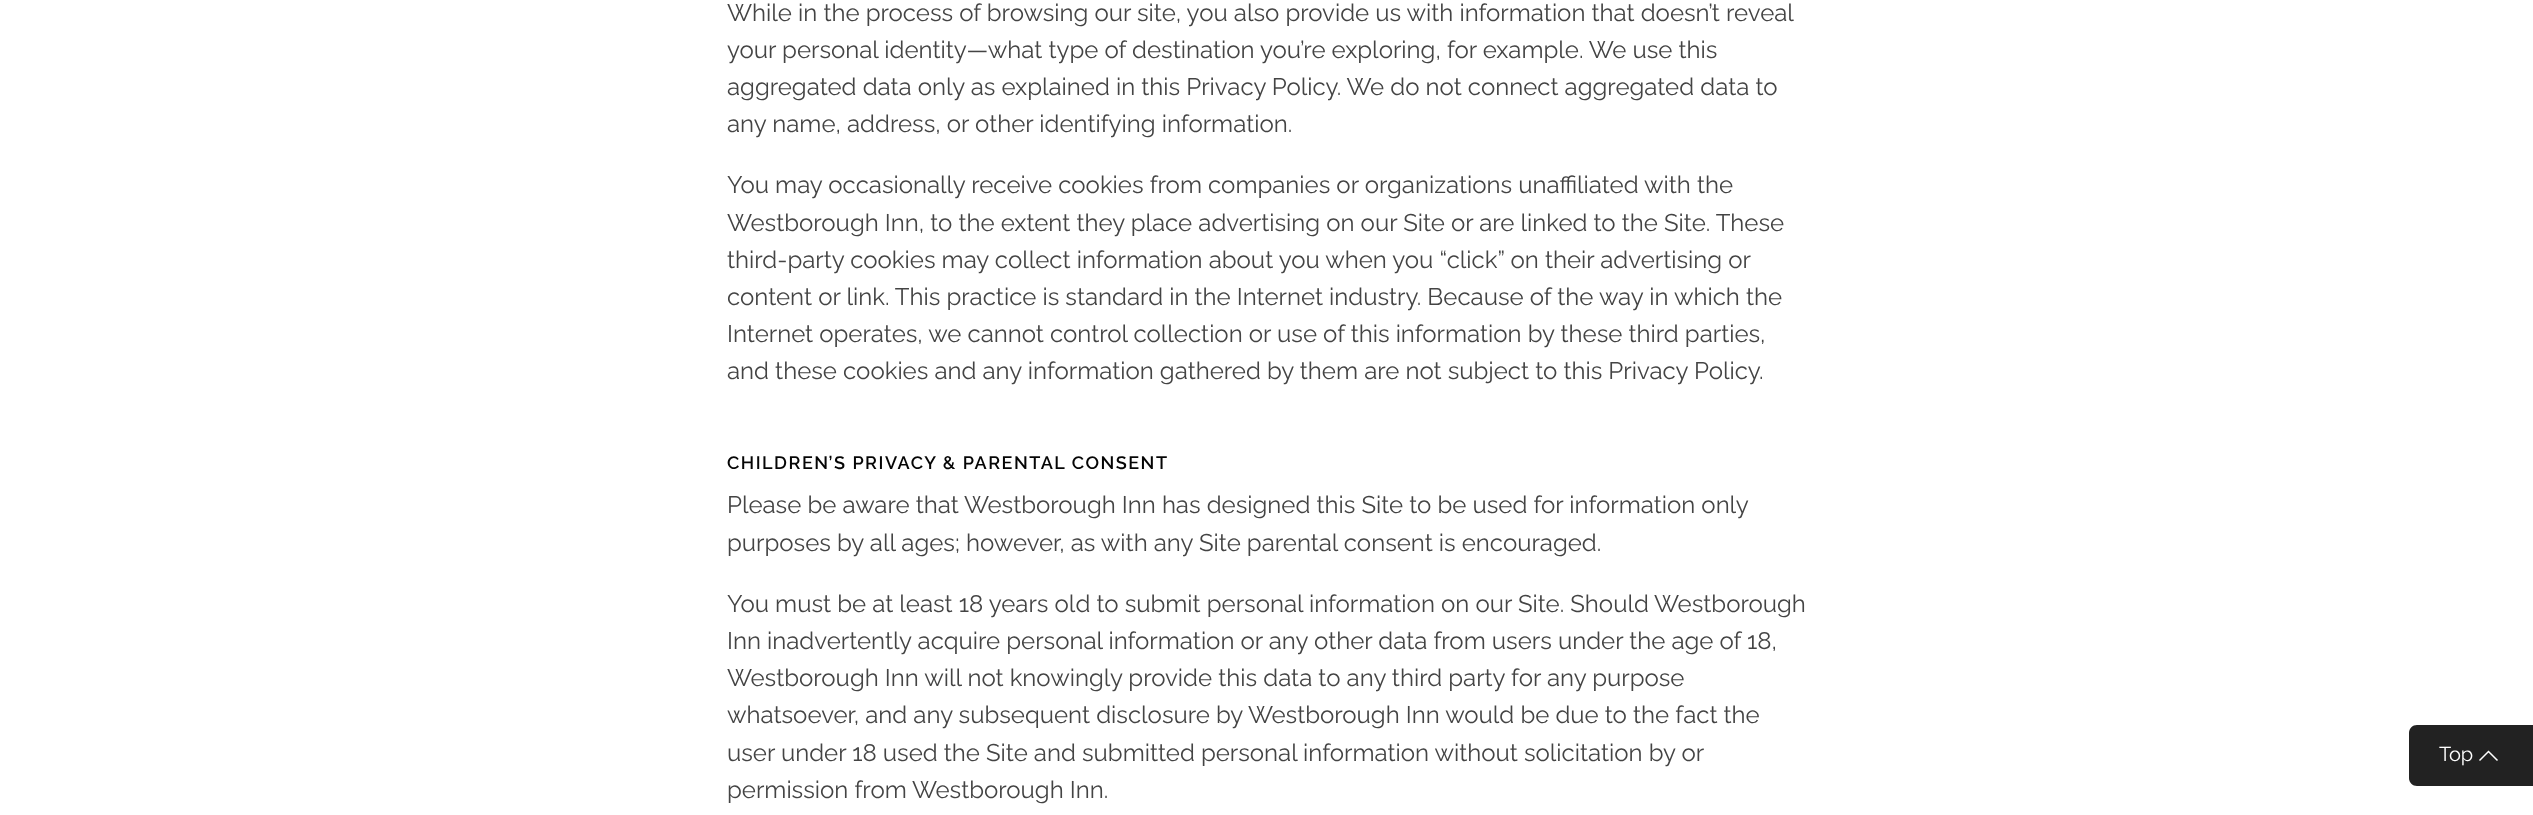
(async () => {
    const canvas = document.querySelector("canvas");
    canvas.width = 2533;
    canvas.height = 815;
    const context = canvas.getContext("2d");
    context.miterLimit = 4;
    context.fontKerning = "normal";
    function write(s, x, y, font, color) {
        context.font = font;
        context.fillStyle = color;
        context.fillText(s, x, y);
    }
    function block(x, y, w, h, color) {
        context.fillStyle = color;
        context.fillRect(x, y, w, h);
    }

    block(0, 0, 2533, 815, "rgb(255, 255, 255)");
    write("While in the process of browsing our site, you also provide us with information that doesn’t reveal", 727, 21, "24px Raleway", "rgb(68, 68, 68)");
    write("your personal identity—what type of destination you’re exploring, for example. We use this", 727, 58, "24px Raleway", "rgb(68, 68, 68)");
    write("aggregated data only as explained in this Privacy Policy. We do not connect aggregated data to", 727, 95, "24px Raleway", "rgb(68, 68, 68)");
    write("any name, address, or other identifying information.", 727, 132, "24px Raleway", "rgb(68, 68, 68)");
    write("You may occasionally receive cookies from companies or organizations unaffiliated with the", 727, 193, "24px Raleway", "rgb(68, 68, 68)");
    write("Westborough Inn, to the extent they place advertising on our Site or are linked to the Site. These", 727, 231, "24px Raleway", "rgb(68, 68, 68)");
    write("third-party cookies may collect information about you when you “click” on their advertising or", 727, 268, "24px Raleway", "rgb(68, 68, 68)");
    write("content or link. This practice is standard in the Internet industry. Because of the way in which the", 727, 305, "24px Raleway", "rgb(68, 68, 68)");
    write("Internet operates, we cannot control collection or use of this information by these third parties,", 727, 342, "24px Raleway", "rgb(68, 68, 68)");
    write("and these cookies and any information gathered by them are not subject to this Privacy Policy.", 727, 379, "24px Raleway", "rgb(68, 68, 68)");
    context.letterSpacing = "1.5px";
    write("CHILDREN’S PRIVACY & PARENTAL CONSENT", 727, 469, "600 18px Raleway", "rgb(5, 5, 5)");
    context.letterSpacing = "0px";
    write("Please be aware that Westborough Inn has designed this Site to be used for information only", 727, 513, "24px Raleway", "rgb(68, 68, 68)");
    write("purposes by all ages; however, as with any Site parental consent is encouraged.", 727, 551, "24px Raleway", "rgb(68, 68, 68)");
    write("You must be at least 18 years old to submit personal information on our Site. Should Westborough", 727, 612, "24px Raleway", "rgb(68, 68, 68)");
    write("Inn inadvertently acquire personal information or any other data from users under the age of 18,", 727, 649, "24px Raleway", "rgb(68, 68, 68)");
    write("Westborough Inn will not knowingly provide this data to any third party for any purpose", 727, 686, "24px Raleway", "rgb(68, 68, 68)");
    write("whatsoever, and any subsequent disclosure by Westborough Inn would be due to the fact the", 727, 723, "24px Raleway", "rgb(68, 68, 68)");
    write("user under 18 used the Site and submitted personal information without solicitation by or", 727, 761, "24px Raleway", "rgb(68, 68, 68)");
    write("permission from Westborough Inn.", 727, 798, "24px Raleway", "rgb(68, 68, 68)");
    context.fillStyle = "rgb(34, 34, 34)";
    context.beginPath();
    context.moveTo(2417, 725);
    context.lineTo(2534, 725);
    context.lineTo(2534, 786);
    context.lineTo(2417, 786);
    context.bezierCurveTo(2412.5, 786, 2409, 782.5, 2409, 778);
    context.lineTo(2409, 733);
    context.bezierCurveTo(2409, 728.5, 2412.5, 725, 2417, 725);
    context.closePath();
    context.fill();
    write("Top", 2439, 761, "20px Raleway", "rgb(255, 255, 255)");
    context.beginPath();
    context.moveTo(2479.5, 760.5);
    context.lineTo(2488.5, 751.5);
    context.lineTo(2497.5, 760.5);
    context.strokeStyle = "rgb(255, 255, 255)";
    context.lineWidth = 1.5;
    context.stroke();
})();
